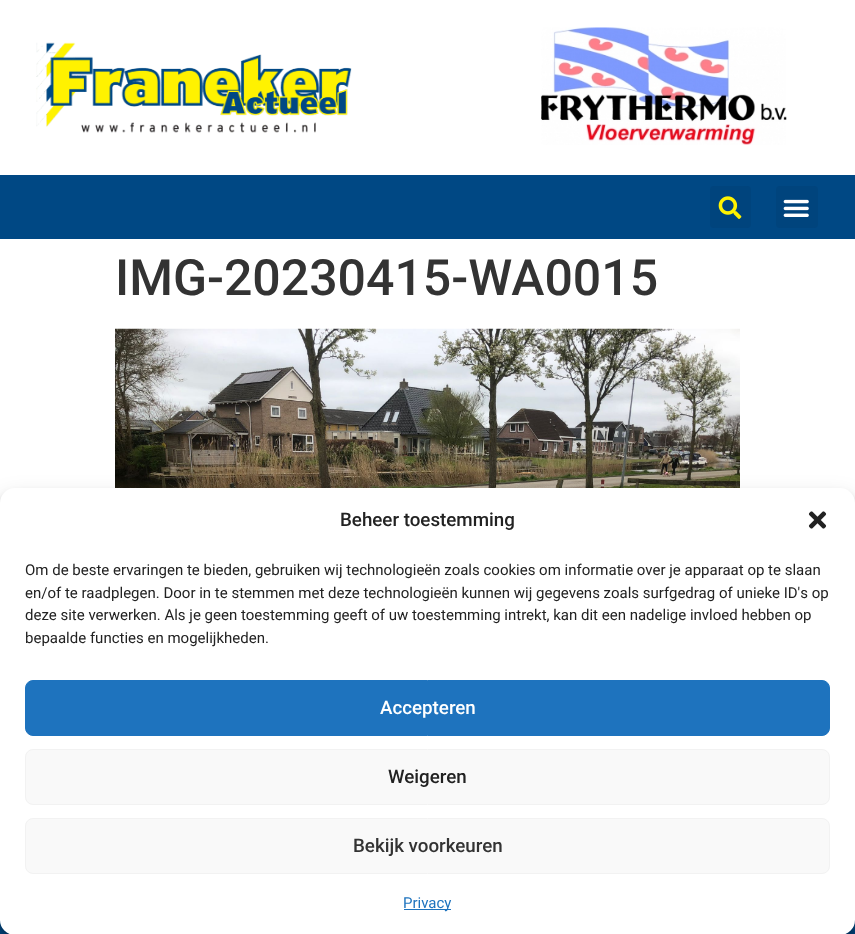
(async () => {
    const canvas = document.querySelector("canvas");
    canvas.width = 855;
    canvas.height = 934;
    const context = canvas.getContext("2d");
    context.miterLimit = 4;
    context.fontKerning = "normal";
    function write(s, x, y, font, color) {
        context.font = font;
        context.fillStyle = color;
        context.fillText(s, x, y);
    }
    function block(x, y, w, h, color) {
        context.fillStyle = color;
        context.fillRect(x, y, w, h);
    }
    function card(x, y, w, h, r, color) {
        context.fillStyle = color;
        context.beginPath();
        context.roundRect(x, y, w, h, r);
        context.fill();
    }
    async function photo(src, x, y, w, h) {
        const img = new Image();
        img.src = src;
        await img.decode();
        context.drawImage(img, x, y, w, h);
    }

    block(0, 0, 855, 934, "rgb(255, 255, 255)");
    await photo("media/1.png", 36, 42, 316, 91);
    await photo("media/2.png", 541, 27, 246, 118);
    block(0, 175, 855, 64, "rgb(0, 72, 132)");
    card(710, 186, 41, 42, 4, "rgb(0, 68, 125)");
    await photo("media/3.png", 718, 196, 24, 23);
    card(776, 186, 42, 42, 4, "rgb(0, 68, 125)");
    await photo("media/4.png", 783, 199, 26, 18);
    write("IMG-20230415-WA0015", 115, 295, "500 50px Roboto", "rgb(51, 51, 51)");
    await photo("media/5.png", 115, 328, 625, 160);
    block(0, 920, 855, 14, "rgb(0, 72, 132)");
    context.fillStyle = "rgba(0, 0, 0, 0.23)";
    context.filter = "blur(4px)";
    context.beginPath();
    context.roundRect(0, 495, 855, 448, 15);
    context.fill();
    context.filter = "none";
    context.fillStyle = "rgba(0, 0, 0, 0.19)";
    context.filter = "blur(12.5px)";
    context.beginPath();
    context.roundRect(0, 500, 855, 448, 15);
    context.fill();
    context.filter = "none";
    card(0, 488, 855, 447, 15, "rgb(255, 255, 255)");
    write("Beheer toestemming", 340, 526, "500 18.75px Roboto", "rgb(34, 34, 34)");
    await photo("media/6.png", 808, 511, 19, 18);
    write("Om de beste ervaringen te bieden, gebruiken wij technologieën zoals cookies om informatie over je apparaat op te slaan", 25, 575, "15px Roboto", "rgb(34, 34, 34)");
    write("en/of te raadplegen. Door in te stemmen met deze technologieën kunnen wij gegevens zoals surfgedrag of unieke ID's op", 25, 598, "15px Roboto", "rgb(34, 34, 34)");
    write("deze site verwerken. Als je geen toestemming geeft of uw toestemming intrekt, kan dit een nadelige invloed hebben op", 25, 620, "15px Roboto", "rgb(34, 34, 34)");
    write("bepaalde functies en mogelijkheden.", 25, 643, "15px Roboto", "rgb(34, 34, 34)");
    context.fillStyle = "rgb(30, 115, 190)";
    context.beginPath();
    context.roundRect(25.5, 680.5, 804, 55, 7.5);
    context.fill();
    context.strokeStyle = "rgb(30, 115, 190)";
    context.stroke();
    write("Accepteren", 380, 714, "500 18.75px Roboto", "rgb(255, 255, 255)");
    context.fillStyle = "rgb(249, 249, 249)";
    context.beginPath();
    context.roundRect(25.5, 749.5, 804, 55, 7.5);
    context.fill();
    context.strokeStyle = "rgb(242, 242, 242)";
    context.stroke();
    write("Weigeren", 388, 783, "500 18.75px Roboto", "rgb(34, 34, 34)");
    context.fillStyle = "rgb(249, 249, 249)";
    context.beginPath();
    context.roundRect(25.5, 818.5, 804, 55, 7.5);
    context.fill();
    context.stroke();
    write("Bekijk voorkeuren", 353, 852, "500 18.75px Roboto", "rgb(51, 51, 51)");
    block(404, 909, 47, 1, "rgb(30, 115, 190)");
    write("Privacy", 403, 908, "15px Roboto", "rgb(30, 115, 190)");
})();
